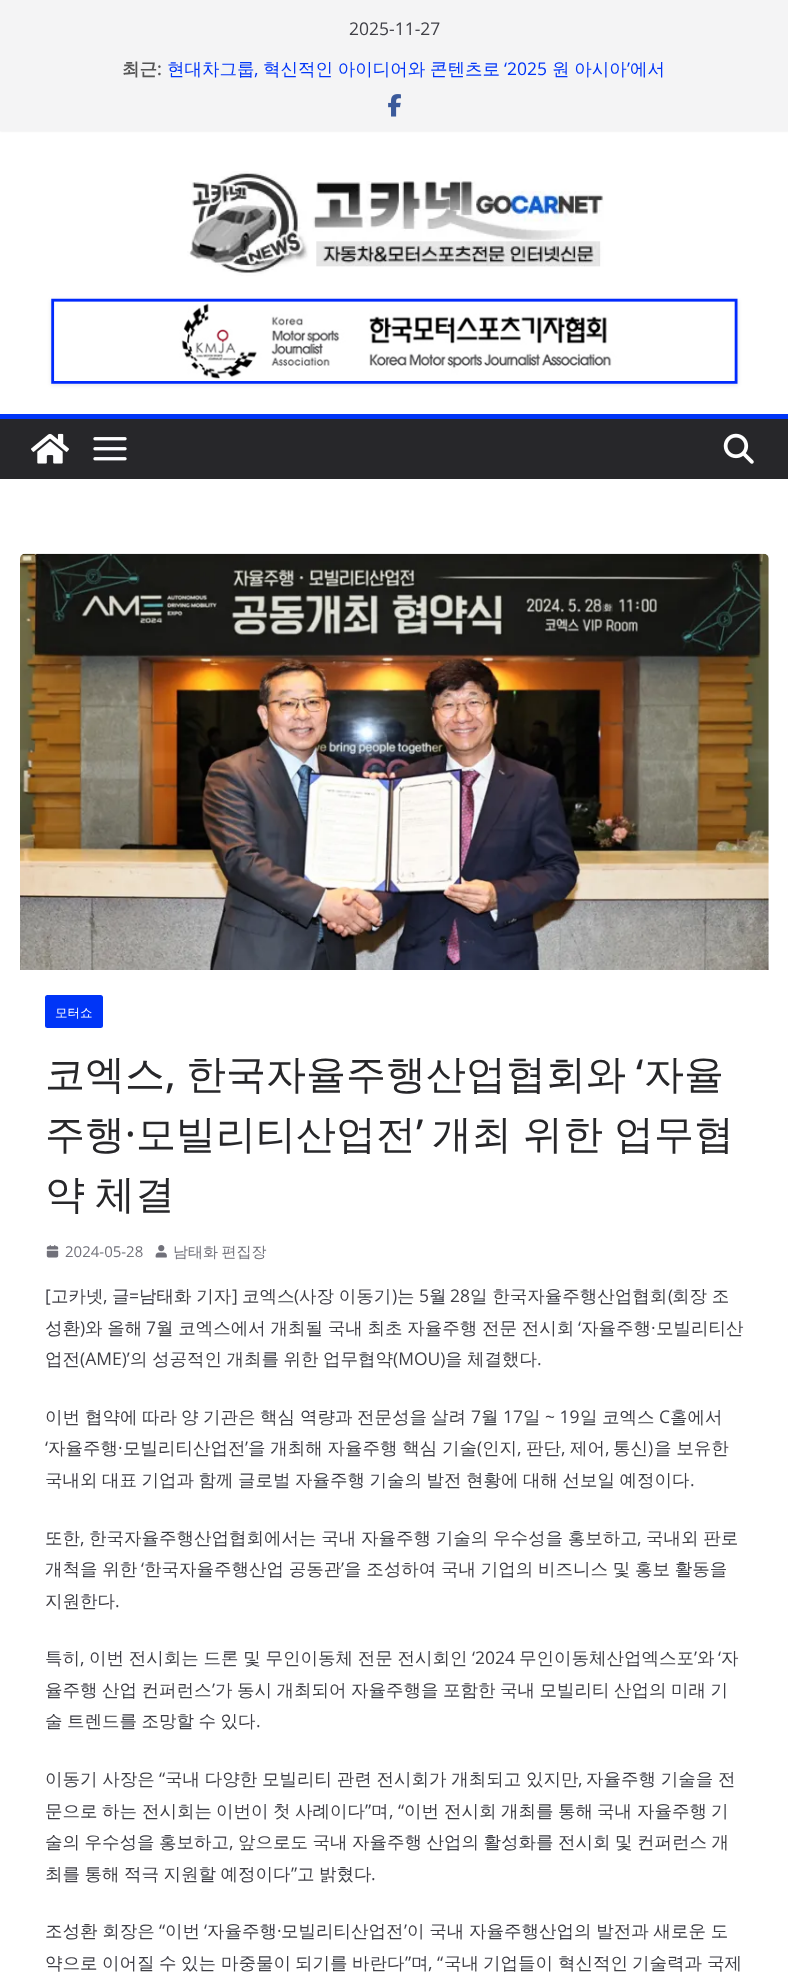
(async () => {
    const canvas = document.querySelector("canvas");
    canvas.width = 788;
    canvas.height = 1986;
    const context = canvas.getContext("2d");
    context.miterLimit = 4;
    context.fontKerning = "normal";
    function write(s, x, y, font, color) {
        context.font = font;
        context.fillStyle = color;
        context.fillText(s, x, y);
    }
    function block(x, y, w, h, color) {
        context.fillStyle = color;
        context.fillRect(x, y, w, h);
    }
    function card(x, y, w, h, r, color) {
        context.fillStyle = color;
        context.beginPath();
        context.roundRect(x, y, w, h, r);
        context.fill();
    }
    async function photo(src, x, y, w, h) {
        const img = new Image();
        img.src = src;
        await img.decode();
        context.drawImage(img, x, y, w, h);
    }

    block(0, 0, 788, 1986, "rgb(255, 255, 255)");
    context.fillStyle = "rgba(0, 0, 0, 0.1)";
    context.filter = "blur(1px)";
    context.beginPath();
    context.rect(0, 0, 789, 131);
    context.fill();
    context.filter = "none";
    block(0, 0, 788, 131, "rgb(244, 244, 245)");
    write("2025-11-27", 349, 35, "17.5px Open Sans", "rgb(63, 63, 70)");
    write("최근", 122, 75, "bold 17.5px WenQuanYi Zen Hei", "rgb(85, 85, 85)");
    write(":", 157, 75, "600 17.5px Open Sans", "rgb(85, 85, 85)");
    write("현대차그룹", 167, 75, "500 17.5px WenQuanYi Zen Hei", "rgb(0, 53, 247)");
    context.wordSpacing = "-0.5px";
    write("혁신적인 아이디어와 콘텐츠로", 263, 75, "500 17.5px WenQuanYi Zen Hei", "rgb(0, 53, 247)");
    context.wordSpacing = "0px";
    write("‘2025", 504, 75, "17.5px Open Sans", "rgb(0, 53, 247)");
    context.wordSpacing = "-0.5px";
    write("원 아시아", 552, 75, "500 17.5px WenQuanYi Zen Hei", "rgb(0, 53, 247)");
    context.wordSpacing = "0px";
    write("’", 627, 75, "17.5px Open Sans", "rgb(0, 53, 247)");
    write("에서", 630, 75, "500 17.5px WenQuanYi Zen Hei", "rgb(0, 53, 247)");
    write(",", 254, 75, "17.5px Open Sans", "rgb(0, 53, 247)");
    await photo("media/1.png", 388, 94, 13, 23);
    await photo("media/2.png", 187, 171, 417, 105);
    context.fillStyle = "rgba(0, 0, 0, 0.1)";
    context.filter = "blur(2px)";
    context.beginPath();
    context.rect(51, 300, 687, 85);
    context.fill();
    context.filter = "none";
    await photo("media/3.png", 51, 298, 687, 86);
    block(0, 419, 788, 60, "rgb(39, 39, 42)");
    block(0, 414, 788, 5, "rgb(0, 53, 247)");
    await photo("media/4.png", 31, 433, 38, 31);
    await photo("media/5.png", 93, 437, 34, 24);
    await photo("media/6.png", 723, 433, 31, 31);
    await photo("media/7.png", 20, 553, 749, 417);
    card(45, 995, 58, 33, 2.5, "rgb(0, 53, 247)");
    write("모터쇼", 55, 1017, "500 12.5px WenQuanYi Zen Hei", "rgb(255, 255, 255)");
    write("코엑스", 45, 1088, "500 40px WenQuanYi Zen Hei", "rgb(39, 39, 42)");
    write("한국자율주행산업협회와", 186, 1088, "500 40px WenQuanYi Zen Hei", "rgb(39, 39, 42)");
    write("‘", 636, 1088, "500 40px Open Sans", "rgb(39, 39, 42)");
    write("자율", 644, 1088, "500 40px WenQuanYi Zen Hei", "rgb(39, 39, 42)");
    write(",", 165, 1088, "500 40px Open Sans", "rgb(39, 39, 42)");
    write("주행", 45, 1148, "500 40px WenQuanYi Zen Hei", "rgb(39, 39, 42)");
    write("모빌리티산업전", 136, 1148, "500 40px WenQuanYi Zen Hei", "rgb(39, 39, 42)");
    write("’", 416, 1148, "500 40px Open Sans", "rgb(39, 39, 42)");
    context.wordSpacing = "-1px";
    write("개최 위한 업무협", 432, 1148, "500 40px WenQuanYi Zen Hei", "rgb(39, 39, 42)");
    context.wordSpacing = "0px";
    write("·", 125, 1148, "500 40px Open Sans", "rgb(39, 39, 42)");
    context.wordSpacing = "-2px";
    write("약 체결", 45, 1208, "500 40px WenQuanYi Zen Hei", "rgb(39, 39, 42)");
    await photo("media/8.png", 46, 1245, 13, 13);
    context.wordSpacing = "0px";
    write("2024-05-28", 65, 1257, "15px Open Sans", "rgb(113, 113, 122)");
    await photo("media/9.png", 155, 1245, 12, 13);
    context.wordSpacing = "-1px";
    write("남태화 편집장", 173, 1257, "500 15px WenQuanYi Zen Hei", "rgb(113, 113, 122)");
    context.wordSpacing = "0px";
    write("[", 45, 1302, "17.5px Open Sans", "rgb(63, 63, 70)");
    write("고카넷", 51, 1302, "500 17.5px WenQuanYi Zen Hei", "rgb(63, 63, 70)");
    write("글", 112, 1302, "500 17.5px WenQuanYi Zen Hei", "rgb(63, 63, 70)");
    context.wordSpacing = "-0.5px";
    write("남태화 기자", 139, 1302, "500 17.5px WenQuanYi Zen Hei", "rgb(63, 63, 70)");
    context.wordSpacing = "0px";
    write("]", 232, 1302, "17.5px Open Sans", "rgb(63, 63, 70)");
    write("코엑스", 242, 1302, "500 17.5px WenQuanYi Zen Hei", "rgb(63, 63, 70)");
    write("(", 294, 1302, "17.5px Open Sans", "rgb(63, 63, 70)");
    context.wordSpacing = "-0.5px";
    write("사장 이동기", 299, 1302, "500 17.5px WenQuanYi Zen Hei", "rgb(63, 63, 70)");
    context.wordSpacing = "0px";
    write(")", 392, 1302, "17.5px Open Sans", "rgb(63, 63, 70)");
    write("는", 397, 1302, "500 17.5px WenQuanYi Zen Hei", "rgb(63, 63, 70)");
    write("5", 419, 1302, "17.5px Open Sans", "rgb(63, 63, 70)");
    write("월", 429, 1302, "500 17.5px WenQuanYi Zen Hei", "rgb(63, 63, 70)");
    write("28", 450, 1302, "17.5px Open Sans", "rgb(63, 63, 70)");
    context.wordSpacing = "-0.5px";
    write("일 한국자율주행산업협회 회장 조", 470, 1302, "500 17.5px WenQuanYi Zen Hei", "rgb(63, 63, 70)");
    context.wordSpacing = "0px";
    write("=", 129, 1302, "17.5px Open Sans", "rgb(63, 63, 70)");
    write("(", 668, 1302, "17.5px Open Sans", "rgb(63, 63, 70)");
    write(",", 103, 1302, "17.5px Open Sans", "rgb(63, 63, 70)");
    write("성환", 45, 1334, "500 17.5px WenQuanYi Zen Hei", "rgb(63, 63, 70)");
    write(")", 80, 1334, "17.5px Open Sans", "rgb(63, 63, 70)");
    context.wordSpacing = "-0.5px";
    write("와 올해", 85, 1334, "500 17.5px WenQuanYi Zen Hei", "rgb(63, 63, 70)");
    context.wordSpacing = "0px";
    write("7", 146, 1334, "17.5px Open Sans", "rgb(63, 63, 70)");
    context.wordSpacing = "-0.5px";
    write("월 코엑스에서 개최될 국내 최초 자율주행 전문 전시회", 156, 1334, "500 17.5px WenQuanYi Zen Hei", "rgb(63, 63, 70)");
    context.wordSpacing = "0px";
    write("‘", 578, 1334, "17.5px Open Sans", "rgb(63, 63, 70)");
    write("자율주행", 581, 1334, "500 17.5px WenQuanYi Zen Hei", "rgb(63, 63, 70)");
    write("모빌리티산", 656, 1334, "500 17.5px WenQuanYi Zen Hei", "rgb(63, 63, 70)");
    write("·", 651, 1334, "17.5px Open Sans", "rgb(63, 63, 70)");
    write("업전", 45, 1365, "500 17.5px WenQuanYi Zen Hei", "rgb(63, 63, 70)");
    write("(AME)’", 80, 1365, "17.5px Open Sans", "rgb(63, 63, 70)");
    context.wordSpacing = "-0.75px";
    write("의 성공적인 개최를 위한 업무협약", 130, 1365, "500 17.5px WenQuanYi Zen Hei", "rgb(63, 63, 70)");
    context.wordSpacing = "0px";
    write("(MOU)", 393, 1365, "17.5px Open Sans", "rgb(63, 63, 70)");
    context.wordSpacing = "-0.75px";
    write("을 체결했다", 445, 1365, "500 17.5px WenQuanYi Zen Hei", "rgb(63, 63, 70)");
    context.wordSpacing = "0px";
    write(".", 537, 1365, "17.5px Open Sans", "rgb(63, 63, 70)");
    write("이번", 45, 1423, "500 17.5px WenQuanYi Zen Hei", "rgb(63, 63, 70)");
    write("협약에", 85, 1423, "500 17.5px WenQuanYi Zen Hei", "rgb(63, 63, 70)");
    write("따라", 142, 1423, "500 17.5px WenQuanYi Zen Hei", "rgb(63, 63, 70)");
    write("양", 181, 1423, "500 17.5px WenQuanYi Zen Hei", "rgb(63, 63, 70)");
    write("기관은", 203, 1423, "500 17.5px WenQuanYi Zen Hei", "rgb(63, 63, 70)");
    write("핵심", 260, 1423, "500 17.5px WenQuanYi Zen Hei", "rgb(63, 63, 70)");
    write("역량과", 300, 1423, "500 17.5px WenQuanYi Zen Hei", "rgb(63, 63, 70)");
    write("전문성을", 357, 1423, "500 17.5px WenQuanYi Zen Hei", "rgb(63, 63, 70)");
    write("살려", 431, 1423, "500 17.5px WenQuanYi Zen Hei", "rgb(63, 63, 70)");
    write("7", 471, 1423, "17.5px Open Sans", "rgb(63, 63, 70)");
    write("월", 481, 1423, "500 17.5px WenQuanYi Zen Hei", "rgb(63, 63, 70)");
    write("17", 503, 1423, "17.5px Open Sans", "rgb(63, 63, 70)");
    write("일", 523, 1423, "500 17.5px WenQuanYi Zen Hei", "rgb(63, 63, 70)");
    write("~ 19", 545, 1423, "17.5px Open Sans", "rgb(63, 63, 70)");
    write("일", 580, 1423, "500 17.5px WenQuanYi Zen Hei", "rgb(63, 63, 70)");
    write("코엑스", 602, 1423, "500 17.5px WenQuanYi Zen Hei", "rgb(63, 63, 70)");
    write("C", 659, 1423, "17.5px Open Sans", "rgb(63, 63, 70)");
    write("홀에서", 670, 1423, "500 17.5px WenQuanYi Zen Hei", "rgb(63, 63, 70)");
    write("‘", 45, 1454, "17.5px Open Sans", "rgb(63, 63, 70)");
    write("자율주행", 48, 1454, "500 17.5px WenQuanYi Zen Hei", "rgb(63, 63, 70)");
    write("·", 118, 1454, "17.5px Open Sans", "rgb(63, 63, 70)");
    write("모빌리티산업전", 123, 1454, "500 17.5px WenQuanYi Zen Hei", "rgb(63, 63, 70)");
    write("’", 245, 1454, "17.5px Open Sans", "rgb(63, 63, 70)");
    context.wordSpacing = "-0.5px";
    write("을 개최해 자율주행 핵심 기술", 248, 1454, "500 17.5px WenQuanYi Zen Hei", "rgb(63, 63, 70)");
    context.wordSpacing = "0px";
    write("(", 477, 1454, "17.5px Open Sans", "rgb(63, 63, 70)");
    write("인지", 482, 1454, "500 17.5px WenQuanYi Zen Hei", "rgb(63, 63, 70)");
    write("판단", 526, 1454, "500 17.5px WenQuanYi Zen Hei", "rgb(63, 63, 70)");
    write("제어", 570, 1454, "500 17.5px WenQuanYi Zen Hei", "rgb(63, 63, 70)");
    write("통신", 613, 1454, "500 17.5px WenQuanYi Zen Hei", "rgb(63, 63, 70)");
    write(")", 648, 1454, "17.5px Open Sans", "rgb(63, 63, 70)");
    context.wordSpacing = "-0.5px";
    write("을 보유한", 654, 1454, "500 17.5px WenQuanYi Zen Hei", "rgb(63, 63, 70)");
    context.wordSpacing = "0px";
    write(",", 517, 1454, "17.5px Open Sans", "rgb(63, 63, 70)");
    write(",", 561, 1454, "17.5px Open Sans", "rgb(63, 63, 70)");
    write(",", 605, 1454, "17.5px Open Sans", "rgb(63, 63, 70)");
    context.wordSpacing = "-0.75px";
    write("국내외 대표 기업과 함께 글로벌 자율주행 기술의 발전 현황에 대해 선보일 예정이다", 45, 1486, "500 17.5px WenQuanYi Zen Hei", "rgb(63, 63, 70)");
    context.wordSpacing = "0px";
    write(".", 690, 1486, "17.5px Open Sans", "rgb(63, 63, 70)");
    write("또한", 45, 1544, "500 17.5px WenQuanYi Zen Hei", "rgb(63, 63, 70)");
    write(",", 80, 1544, "17.5px Open Sans", "rgb(63, 63, 70)");
    context.wordSpacing = "-0.5px";
    write("한국자율주행산업협회에서는 국내 자율주행 기술의 우수성을 홍보하고", 89, 1544, "500 17.5px WenQuanYi Zen Hei", "rgb(63, 63, 70)");
    context.wordSpacing = "0px";
    write(",", 637, 1544, "17.5px Open Sans", "rgb(63, 63, 70)");
    context.wordSpacing = "-0.5px";
    write("국내외 판로", 646, 1544, "500 17.5px WenQuanYi Zen Hei", "rgb(63, 63, 70)");
    write("개척을 위한", 45, 1575, "500 17.5px WenQuanYi Zen Hei", "rgb(63, 63, 70)");
    context.wordSpacing = "0px";
    write("‘", 141, 1575, "17.5px Open Sans", "rgb(63, 63, 70)");
    context.wordSpacing = "-0.5px";
    write("한국자율주행산업 공동관", 144, 1575, "500 17.5px WenQuanYi Zen Hei", "rgb(63, 63, 70)");
    context.wordSpacing = "0px";
    write("’", 341, 1575, "17.5px Open Sans", "rgb(63, 63, 70)");
    context.wordSpacing = "-0.5px";
    write("을 조성하여 국내 기업의 비즈니스 및 홍보 활동을", 344, 1575, "500 17.5px WenQuanYi Zen Hei", "rgb(63, 63, 70)");
    context.wordSpacing = "0px";
    write("지원한다", 45, 1607, "500 17.5px WenQuanYi Zen Hei", "rgb(63, 63, 70)");
    write(".", 115, 1607, "17.5px Open Sans", "rgb(63, 63, 70)");
    write("특히", 45, 1664, "500 17.5px WenQuanYi Zen Hei", "rgb(63, 63, 70)");
    context.wordSpacing = "-0.5px";
    write("이번 전시회는 드론 및 무인이동체 전문 전시회인", 89, 1664, "500 17.5px WenQuanYi Zen Hei", "rgb(63, 63, 70)");
    context.wordSpacing = "0px";
    write("‘2024", 472, 1664, "17.5px Open Sans", "rgb(63, 63, 70)");
    write("무인이동체산업엑스포", 519, 1664, "500 17.5px WenQuanYi Zen Hei", "rgb(63, 63, 70)");
    write("’", 694, 1664, "17.5px Open Sans", "rgb(63, 63, 70)");
    write("와", 697, 1664, "500 17.5px WenQuanYi Zen Hei", "rgb(63, 63, 70)");
    write("‘", 718, 1664, "17.5px Open Sans", "rgb(63, 63, 70)");
    write("자", 721, 1664, "500 17.5px WenQuanYi Zen Hei", "rgb(63, 63, 70)");
    write(",", 80, 1664, "17.5px Open Sans", "rgb(63, 63, 70)");
    context.wordSpacing = "-0.75px";
    write("율주행 산업 컨퍼런스", 45, 1696, "500 17.5px WenQuanYi Zen Hei", "rgb(63, 63, 70)");
    context.wordSpacing = "0px";
    write("’", 212, 1696, "17.5px Open Sans", "rgb(63, 63, 70)");
    context.wordSpacing = "-0.75px";
    write("가 동시 개최되어 자율주행을 포함한 국내 모빌리티 산업의 미래 기", 215, 1696, "500 17.5px WenQuanYi Zen Hei", "rgb(63, 63, 70)");
    write("술 트렌드를 조망할 수 있다", 45, 1727, "500 17.5px WenQuanYi Zen Hei", "rgb(63, 63, 70)");
    context.wordSpacing = "0px";
    write(".", 256, 1727, "17.5px Open Sans", "rgb(63, 63, 70)");
    context.wordSpacing = "-0.5px";
    write("이동기 사장은", 45, 1785, "500 17.5px WenQuanYi Zen Hei", "rgb(63, 63, 70)");
    context.wordSpacing = "0px";
    write("“", 159, 1785, "17.5px Open Sans", "rgb(63, 63, 70)");
    context.wordSpacing = "-0.5px";
    write("국내 다양한 모빌리티 관련 전시회가 개최되고 있지만", 165, 1785, "500 17.5px WenQuanYi Zen Hei", "rgb(63, 63, 70)");
    write("자율주행 기술을 전", 586, 1785, "500 17.5px WenQuanYi Zen Hei", "rgb(63, 63, 70)");
    context.wordSpacing = "0px";
    write(",", 578, 1785, "17.5px Open Sans", "rgb(63, 63, 70)");
    write("문으로", 45, 1817, "500 17.5px WenQuanYi Zen Hei", "rgb(63, 63, 70)");
    write("하는", 102, 1817, "500 17.5px WenQuanYi Zen Hei", "rgb(63, 63, 70)");
    write("전시회는", 142, 1817, "500 17.5px WenQuanYi Zen Hei", "rgb(63, 63, 70)");
    write("이번이", 216, 1817, "500 17.5px WenQuanYi Zen Hei", "rgb(63, 63, 70)");
    write("첫", 273, 1817, "500 17.5px WenQuanYi Zen Hei", "rgb(63, 63, 70)");
    write("사례이다", 295, 1817, "500 17.5px WenQuanYi Zen Hei", "rgb(63, 63, 70)");
    write("”", 365, 1817, "17.5px Open Sans", "rgb(63, 63, 70)");
    write("며", 371, 1817, "500 17.5px WenQuanYi Zen Hei", "rgb(63, 63, 70)");
    write(", “", 389, 1817, "17.5px Open Sans", "rgb(63, 63, 70)");
    write("이번", 404, 1817, "500 17.5px WenQuanYi Zen Hei", "rgb(63, 63, 70)");
    write("전시회", 444, 1817, "500 17.5px WenQuanYi Zen Hei", "rgb(63, 63, 70)");
    write("개최를", 501, 1817, "500 17.5px WenQuanYi Zen Hei", "rgb(63, 63, 70)");
    write("통해", 558, 1817, "500 17.5px WenQuanYi Zen Hei", "rgb(63, 63, 70)");
    write("국내", 597, 1817, "500 17.5px WenQuanYi Zen Hei", "rgb(63, 63, 70)");
    write("자율주행", 637, 1817, "500 17.5px WenQuanYi Zen Hei", "rgb(63, 63, 70)");
    write("기", 711, 1817, "500 17.5px WenQuanYi Zen Hei", "rgb(63, 63, 70)");
    context.wordSpacing = "-0.75px";
    write("술의 우수성을 홍보하고", 45, 1848, "500 17.5px WenQuanYi Zen Hei", "rgb(63, 63, 70)");
    context.wordSpacing = "0px";
    write(",", 229, 1848, "17.5px Open Sans", "rgb(63, 63, 70)");
    context.wordSpacing = "-0.75px";
    write("앞으로도 국내 자율주행 산업의 활성화를 전시회 및 컨퍼런스 개", 238, 1848, "500 17.5px WenQuanYi Zen Hei", "rgb(63, 63, 70)");
    write("최를 통해 적극 지원할 예정이다", 45, 1880, "500 17.5px WenQuanYi Zen Hei", "rgb(63, 63, 70)");
    context.wordSpacing = "0px";
    write("”", 291, 1880, "17.5px Open Sans", "rgb(63, 63, 70)");
    context.wordSpacing = "-0.75px";
    write("고 밝혔다", 297, 1880, "500 17.5px WenQuanYi Zen Hei", "rgb(63, 63, 70)");
    context.wordSpacing = "0px";
    write(".", 371, 1880, "17.5px Open Sans", "rgb(63, 63, 70)");
    context.wordSpacing = "-0.5px";
    write("조성환 회장은", 45, 1937, "500 17.5px WenQuanYi Zen Hei", "rgb(63, 63, 70)");
    context.wordSpacing = "0px";
    write("“", 159, 1937, "17.5px Open Sans", "rgb(63, 63, 70)");
    write("이번", 165, 1937, "500 17.5px WenQuanYi Zen Hei", "rgb(63, 63, 70)");
    write("‘", 204, 1937, "17.5px Open Sans", "rgb(63, 63, 70)");
    write("자율주행", 207, 1937, "500 17.5px WenQuanYi Zen Hei", "rgb(63, 63, 70)");
    write("모빌리티산업전", 281, 1937, "500 17.5px WenQuanYi Zen Hei", "rgb(63, 63, 70)");
    write("’", 404, 1937, "17.5px Open Sans", "rgb(63, 63, 70)");
    context.wordSpacing = "-0.5px";
    write("이 국내 자율주행산업의 발전과 새로운 도", 407, 1937, "500 17.5px WenQuanYi Zen Hei", "rgb(63, 63, 70)");
    context.wordSpacing = "0px";
    write("·", 277, 1937, "17.5px Open Sans", "rgb(63, 63, 70)");
    write("약으로", 45, 1969, "500 17.5px WenQuanYi Zen Hei", "rgb(63, 63, 70)");
    write("이어질", 102, 1969, "500 17.5px WenQuanYi Zen Hei", "rgb(63, 63, 70)");
    write("수", 159, 1969, "500 17.5px WenQuanYi Zen Hei", "rgb(63, 63, 70)");
    write("있는", 181, 1969, "500 17.5px WenQuanYi Zen Hei", "rgb(63, 63, 70)");
    write("마중물이", 221, 1969, "500 17.5px WenQuanYi Zen Hei", "rgb(63, 63, 70)");
    write("되기를", 295, 1969, "500 17.5px WenQuanYi Zen Hei", "rgb(63, 63, 70)");
    write("바란다", 352, 1969, "500 17.5px WenQuanYi Zen Hei", "rgb(63, 63, 70)");
    write("”", 405, 1969, "17.5px Open Sans", "rgb(63, 63, 70)");
    write("며", 411, 1969, "500 17.5px WenQuanYi Zen Hei", "rgb(63, 63, 70)");
    write(", “", 428, 1969, "17.5px Open Sans", "rgb(63, 63, 70)");
    write("국내", 444, 1969, "500 17.5px WenQuanYi Zen Hei", "rgb(63, 63, 70)");
    write("기업들이", 483, 1969, "500 17.5px WenQuanYi Zen Hei", "rgb(63, 63, 70)");
    write("혁신적인", 558, 1969, "500 17.5px WenQuanYi Zen Hei", "rgb(63, 63, 70)");
    write("기술력과", 632, 1969, "500 17.5px WenQuanYi Zen Hei", "rgb(63, 63, 70)");
    write("국제", 707, 1969, "500 17.5px WenQuanYi Zen Hei", "rgb(63, 63, 70)");
})();
